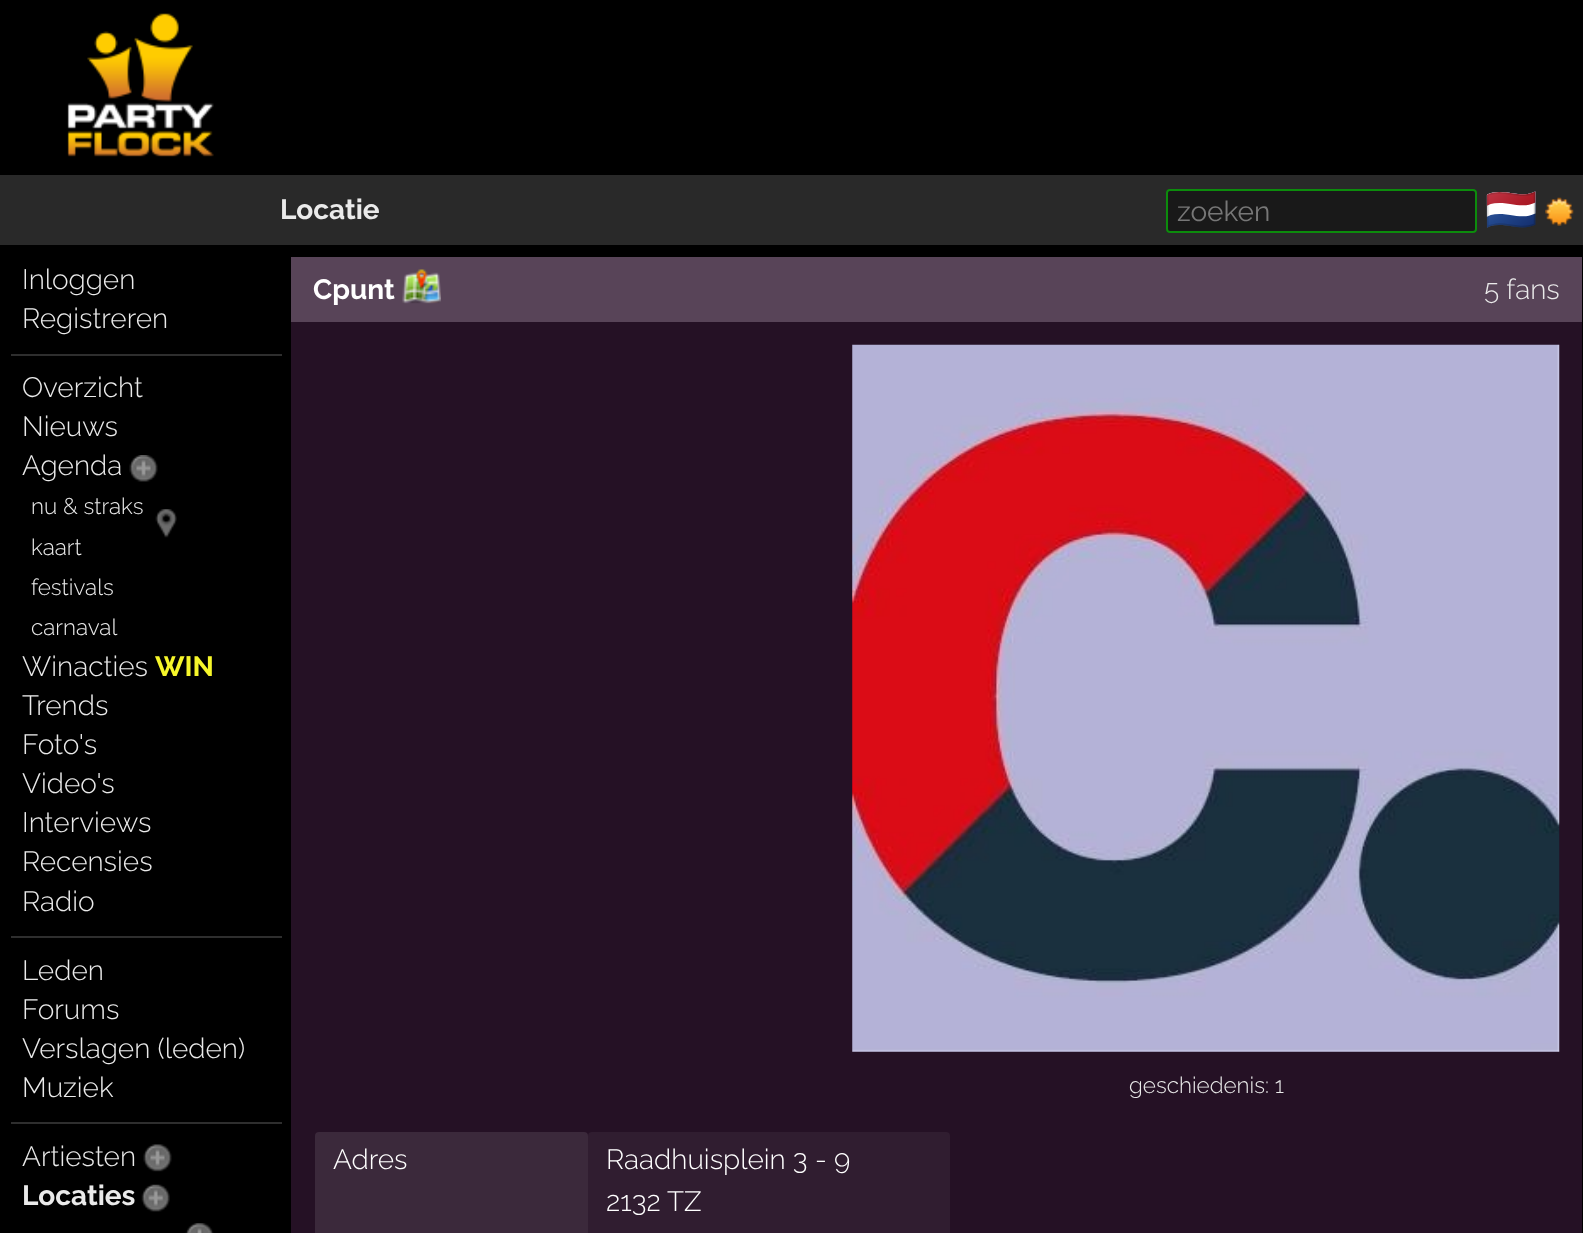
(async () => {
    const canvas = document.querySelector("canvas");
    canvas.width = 1583;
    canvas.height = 1233;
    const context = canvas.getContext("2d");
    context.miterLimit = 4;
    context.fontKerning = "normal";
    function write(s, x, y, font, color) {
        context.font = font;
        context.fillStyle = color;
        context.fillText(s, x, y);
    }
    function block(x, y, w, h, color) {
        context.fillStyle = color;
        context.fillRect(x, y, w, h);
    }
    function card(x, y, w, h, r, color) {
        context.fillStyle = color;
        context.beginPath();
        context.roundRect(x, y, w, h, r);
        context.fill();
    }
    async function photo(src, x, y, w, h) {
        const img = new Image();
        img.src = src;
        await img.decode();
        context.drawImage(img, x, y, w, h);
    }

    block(0, 0, 1583, 1233, "rgb(0, 0, 0)");
    await photo("media/1.png", 67, 13, 147, 144);
    block(0, 175, 1583, 70, "rgb(41, 41, 41)");
    write("Locatie", 280, 219, "bold 28px Raleway", "rgb(234, 234, 234)");
    card(1166, 189, 311, 44, 4, "rgb(25, 25, 25)");
    context.beginPath();
    context.roundRect(1167, 190, 309, 42, 3);
    context.strokeStyle = "rgba(0, 255, 0, 0.5)";
    context.lineWidth = 2;
    context.stroke();
    write("zoeken", 1177, 221, "28px Raleway", "rgb(119, 119, 119)");
    write("🇳🇱", 1485, 224, "42px Noto Color Emoji", "rgb(234, 234, 234)");
    await photo("media/2.png", 1545, 197, 29, 29);
    write("Inloggen", 22, 289, "300 28px Raleway", "rgb(234, 234, 234)");
    write("Registreren", 22, 328, "300 28px Raleway", "rgb(234, 234, 234)");
    block(11, 354, 271, 2, "rgb(46, 46, 46)");
    write("Overzicht", 22, 397, "300 28px Raleway", "rgb(234, 234, 234)");
    write("Nieuws", 22, 436, "300 28px Raleway", "rgb(234, 234, 234)");
    write("Agenda", 22, 475, "300 28px Raleway", "rgb(234, 234, 234)");
    await photo("media/3.png", 129, 455, 29, 27);
    write("nu & straks", 31, 514, "300 22.5px Raleway", "rgb(234, 234, 234)");
    await photo("media/4.png", 155, 509, 22, 29);
    write("kaart", 31, 555, "300 22.5px Raleway", "rgb(234, 234, 234)");
    write("festivals", 31, 595, "300 22.5px Raleway", "rgb(234, 234, 234)");
    write("carnaval", 31, 635, "300 22.5px Raleway", "rgb(234, 234, 234)");
    write("Winacties", 22, 676, "300 28px Raleway", "rgb(234, 234, 234)");
    write("WIN", 155, 676, "bold 28px Raleway", "rgb(246, 246, 42)");
    write("Trends", 22, 715, "300 28px Raleway", "rgb(234, 234, 234)");
    write("Foto's", 22, 754, "300 28px Raleway", "rgb(234, 234, 234)");
    write("Video's", 22, 793, "300 28px Raleway", "rgb(234, 234, 234)");
    write("Interviews", 22, 832, "300 28px Raleway", "rgb(234, 234, 234)");
    write("Recensies", 22, 871, "300 28px Raleway", "rgb(234, 234, 234)");
    write("Radio", 22, 911, "300 28px Raleway", "rgb(234, 234, 234)");
    block(11, 936, 271, 2, "rgb(46, 46, 46)");
    write("Leden", 22, 980, "300 28px Raleway", "rgb(234, 234, 234)");
    write("Forums", 22, 1019, "300 28px Raleway", "rgb(234, 234, 234)");
    write("Verslagen (leden)", 22, 1058, "300 28px Raleway", "rgb(234, 234, 234)");
    write("Muziek", 22, 1097, "300 28px Raleway", "rgb(234, 234, 234)");
    block(11, 1122, 271, 2, "rgb(46, 46, 46)");
    write("Artiesten", 22, 1166, "300 28px Raleway", "rgb(234, 234, 234)");
    await photo("media/5.png", 143, 1144, 29, 28);
    write("Locaties", 22, 1205, "bold 28px Raleway", "rgb(234, 234, 234)");
    await photo("media/6.png", 141, 1184, 29, 28);
    await photo("media/7.png", 185, 1223, 29, 10);
    block(291, 322, 1291, 911, "rgb(37, 17, 37)");
    block(291, 257, 1291, 65, "rgb(88, 68, 88)");
    write("Cpunt", 313, 299, "bold 28px Raleway", "rgb(255, 255, 255)");
    await photo("media/8.png", 402, 269, 39, 35);
    write("5 fans", 1484, 299, "300 28px Raleway", "rgb(234, 234, 234)");
    await photo("media/9.png", 852, 344, 708, 708);
    write("geschiedenis: 1", 1129, 1093, "300 22.5px Raleway", "rgb(234, 234, 234)");
    card(315, 1132, 273, 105, 4, "rgb(59, 41, 59)");
    write("Adres", 333, 1169, "300 28px Raleway", "rgb(255, 255, 255)");
    card(588, 1132, 362, 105, 4, "rgb(48, 29, 48)");
    write("Raadhuisplein 3 - 9", 606, 1169, "300 28px Raleway", "rgb(255, 255, 255)");
    write("2132 TZ", 606, 1211, "300 28px Raleway", "rgb(255, 255, 255)");
})();
